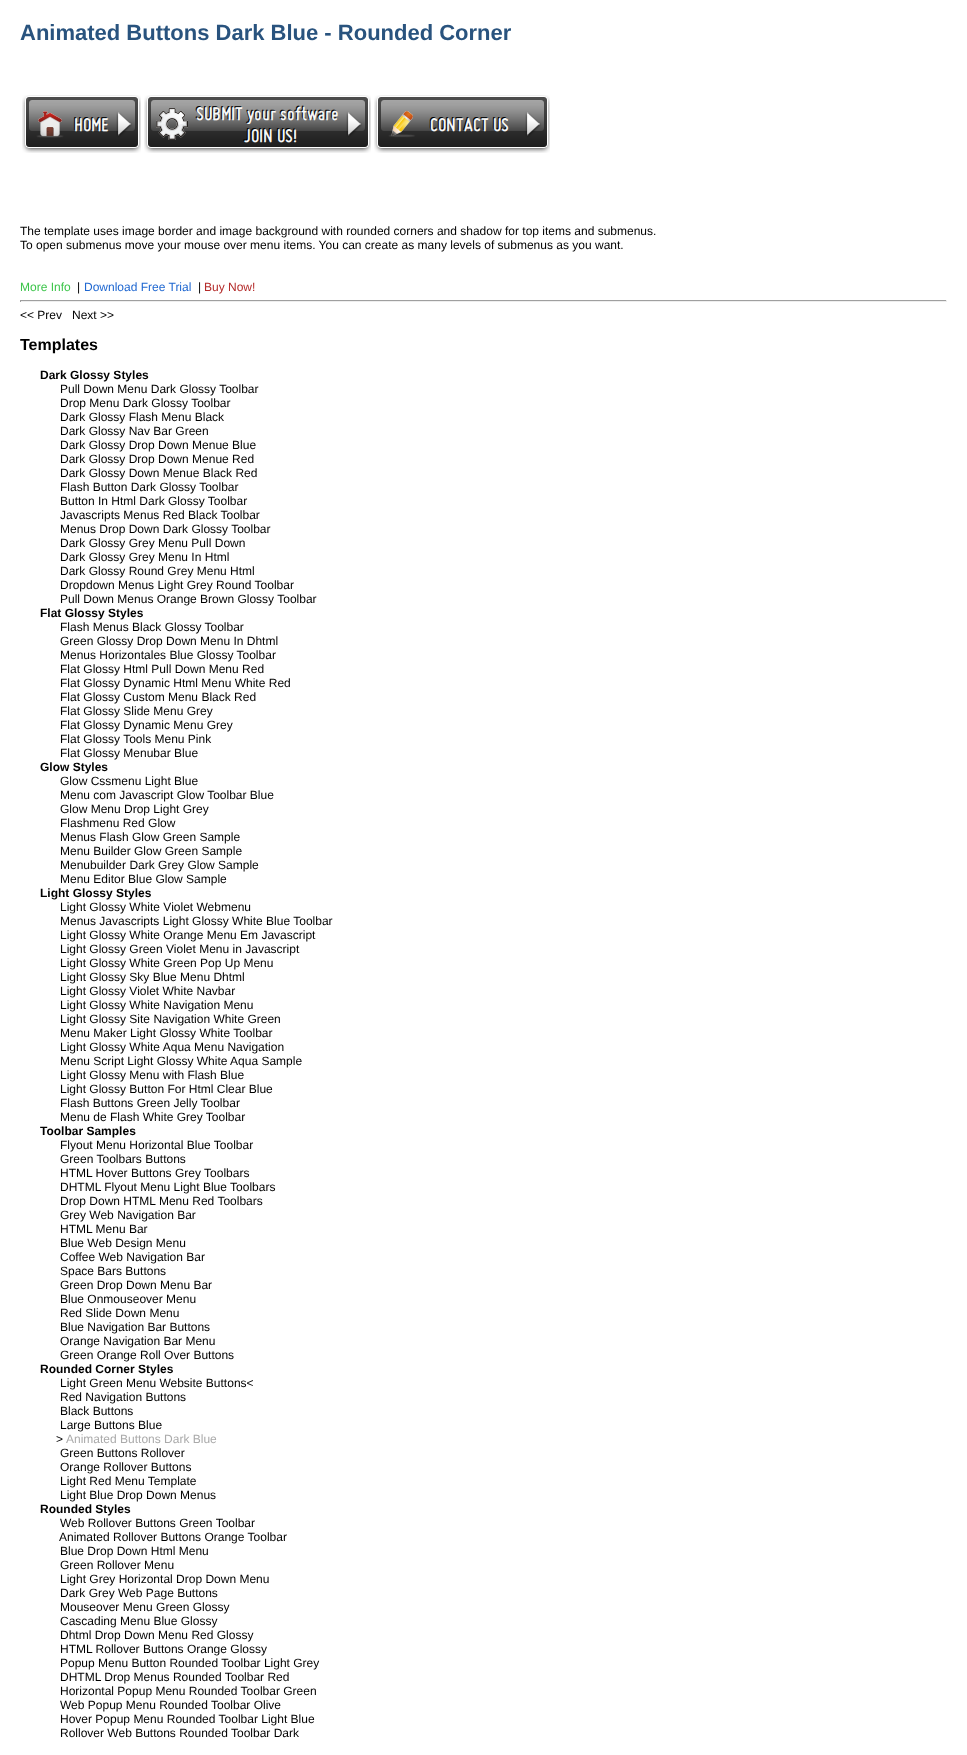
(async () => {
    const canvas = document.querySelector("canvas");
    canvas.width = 967;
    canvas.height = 1755;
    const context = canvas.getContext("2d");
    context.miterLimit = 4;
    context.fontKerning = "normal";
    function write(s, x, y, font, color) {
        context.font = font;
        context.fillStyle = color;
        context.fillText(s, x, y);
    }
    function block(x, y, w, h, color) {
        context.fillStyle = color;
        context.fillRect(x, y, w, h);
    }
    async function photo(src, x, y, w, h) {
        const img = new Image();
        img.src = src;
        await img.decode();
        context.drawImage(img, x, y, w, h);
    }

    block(0, 0, 967, 1755, "rgb(255, 255, 255)");
    write("Animated Buttons Dark Blue - Rounded Corner", 20, 40, "bold 22px Liberation Sans", "rgb(41, 83, 126)");
    await photo("media/1.png", 22, 95, 119, 58);
    await photo("media/2.png", 144, 95, 227, 58);
    await photo("media/3.png", 374, 95, 176, 58);
    write("The template uses image border and image background with rounded corners and shadow for top items and submenus.", 20, 235, "12px Liberation Sans", "rgb(0, 0, 0)");
    write("To open submenus move your mouse over menu items. You can create as many levels of submenus as you want.", 20, 249, "12px Liberation Sans", "rgb(0, 0, 0)");
    write("More Info", 20, 291, "12px Liberation Sans", "rgb(61, 197, 75)");
    write("|", 77, 291, "12px Liberation Sans", "rgb(0, 0, 0)");
    write("Download Free Trial", 84, 291, "12px Liberation Sans", "rgb(32, 104, 209)");
    write("|", 198, 291, "12px Liberation Sans", "rgb(0, 0, 0)");
    write("Buy Now!", 204, 291, "12px Liberation Sans", "rgb(180, 43, 42)");
    block(20, 300, 927, 1, "rgb(159, 159, 159)");
    block(946, 300, 1, 2, "rgb(238, 238, 238)");
    block(20, 301, 927, 1, "rgb(238, 238, 238)");
    block(20, 300, 1, 2, "rgb(159, 159, 159)");
    write("<< Prev", 20, 319, "12px Liberation Sans", "rgb(0, 0, 0)");
    write("Next >>", 72, 319, "12px Liberation Sans", "rgb(0, 0, 0)");
    write("Templates", 20, 350, "bold 16px Liberation Sans", "rgb(0, 0, 0)");
    write("Dark Glossy Styles", 40, 379, "bold 12px Liberation Sans", "rgb(0, 0, 0)");
    write("Pull Down Menu Dark Glossy Toolbar", 60, 393, "12px Liberation Sans", "rgb(0, 0, 0)");
    write("Drop Menu Dark Glossy Toolbar", 60, 407, "12px Liberation Sans", "rgb(0, 0, 0)");
    write("Dark Glossy Flash Menu Black", 60, 421, "12px Liberation Sans", "rgb(0, 0, 0)");
    write("Dark Glossy Nav Bar Green", 60, 435, "12px Liberation Sans", "rgb(0, 0, 0)");
    write("Dark Glossy Drop Down Menue Blue", 60, 449, "12px Liberation Sans", "rgb(0, 0, 0)");
    write("Dark Glossy Drop Down Menue Red", 60, 463, "12px Liberation Sans", "rgb(0, 0, 0)");
    write("Dark Glossy Down Menue Black Red", 60, 477, "12px Liberation Sans", "rgb(0, 0, 0)");
    write("Flash Button Dark Glossy Toolbar", 60, 491, "12px Liberation Sans", "rgb(0, 0, 0)");
    write("Button In Html Dark Glossy Toolbar", 60, 505, "12px Liberation Sans", "rgb(0, 0, 0)");
    write("Javascripts Menus Red Black Toolbar", 60, 519, "12px Liberation Sans", "rgb(0, 0, 0)");
    write("Menus Drop Down Dark Glossy Toolbar", 60, 533, "12px Liberation Sans", "rgb(0, 0, 0)");
    write("Dark Glossy Grey Menu Pull Down", 60, 547, "12px Liberation Sans", "rgb(0, 0, 0)");
    write("Dark Glossy Grey Menu In Html", 60, 561, "12px Liberation Sans", "rgb(0, 0, 0)");
    write("Dark Glossy Round Grey Menu Html", 60, 575, "12px Liberation Sans", "rgb(0, 0, 0)");
    write("Dropdown Menus Light Grey Round Toolbar", 60, 589, "12px Liberation Sans", "rgb(0, 0, 0)");
    write("Pull Down Menus Orange Brown Glossy Toolbar", 60, 603, "12px Liberation Sans", "rgb(0, 0, 0)");
    write("Flat Glossy Styles", 40, 617, "bold 12px Liberation Sans", "rgb(0, 0, 0)");
    write("Flash Menus Black Glossy Toolbar", 60, 631, "12px Liberation Sans", "rgb(0, 0, 0)");
    write("Green Glossy Drop Down Menu In Dhtml", 60, 645, "12px Liberation Sans", "rgb(0, 0, 0)");
    write("Menus Horizontales Blue Glossy Toolbar", 60, 659, "12px Liberation Sans", "rgb(0, 0, 0)");
    write("Flat Glossy Html Pull Down Menu Red", 60, 673, "12px Liberation Sans", "rgb(0, 0, 0)");
    write("Flat Glossy Dynamic Html Menu White Red", 60, 687, "12px Liberation Sans", "rgb(0, 0, 0)");
    write("Flat Glossy Custom Menu Black Red", 60, 701, "12px Liberation Sans", "rgb(0, 0, 0)");
    write("Flat Glossy Slide Menu Grey", 60, 715, "12px Liberation Sans", "rgb(0, 0, 0)");
    write("Flat Glossy Dynamic Menu Grey", 60, 729, "12px Liberation Sans", "rgb(0, 0, 0)");
    write("Flat Glossy Tools Menu Pink", 60, 743, "12px Liberation Sans", "rgb(0, 0, 0)");
    write("Flat Glossy Menubar Blue", 60, 757, "12px Liberation Sans", "rgb(0, 0, 0)");
    write("Glow Styles", 40, 771, "bold 12px Liberation Sans", "rgb(0, 0, 0)");
    write("Glow Cssmenu Light Blue", 60, 785, "12px Liberation Sans", "rgb(0, 0, 0)");
    write("Menu com Javascript Glow Toolbar Blue", 60, 799, "12px Liberation Sans", "rgb(0, 0, 0)");
    write("Glow Menu Drop Light Grey", 60, 813, "12px Liberation Sans", "rgb(0, 0, 0)");
    write("Flashmenu Red Glow", 60, 827, "12px Liberation Sans", "rgb(0, 0, 0)");
    write("Menus Flash Glow Green Sample", 60, 841, "12px Liberation Sans", "rgb(0, 0, 0)");
    write("Menu Builder Glow Green Sample", 60, 855, "12px Liberation Sans", "rgb(0, 0, 0)");
    write("Menubuilder Dark Grey Glow Sample", 60, 869, "12px Liberation Sans", "rgb(0, 0, 0)");
    write("Menu Editor Blue Glow Sample", 60, 883, "12px Liberation Sans", "rgb(0, 0, 0)");
    write("Light Glossy Styles", 40, 897, "bold 12px Liberation Sans", "rgb(0, 0, 0)");
    write("Light Glossy White Violet Webmenu", 60, 911, "12px Liberation Sans", "rgb(0, 0, 0)");
    write("Menus Javascripts Light Glossy White Blue Toolbar", 60, 925, "12px Liberation Sans", "rgb(0, 0, 0)");
    write("Light Glossy White Orange Menu Em Javascript", 60, 939, "12px Liberation Sans", "rgb(0, 0, 0)");
    write("Light Glossy Green Violet Menu in Javascript", 60, 953, "12px Liberation Sans", "rgb(0, 0, 0)");
    write("Light Glossy White Green Pop Up Menu", 60, 967, "12px Liberation Sans", "rgb(0, 0, 0)");
    write("Light Glossy Sky Blue Menu Dhtml", 60, 981, "12px Liberation Sans", "rgb(0, 0, 0)");
    write("Light Glossy Violet White Navbar", 60, 995, "12px Liberation Sans", "rgb(0, 0, 0)");
    write("Light Glossy White Navigation Menu", 60, 1009, "12px Liberation Sans", "rgb(0, 0, 0)");
    write("Light Glossy Site Navigation White Green", 60, 1023, "12px Liberation Sans", "rgb(0, 0, 0)");
    write("Menu Maker Light Glossy White Toolbar", 60, 1037, "12px Liberation Sans", "rgb(0, 0, 0)");
    write("Light Glossy White Aqua Menu Navigation", 60, 1051, "12px Liberation Sans", "rgb(0, 0, 0)");
    write("Menu Script Light Glossy White Aqua Sample", 60, 1065, "12px Liberation Sans", "rgb(0, 0, 0)");
    write("Light Glossy Menu with Flash Blue", 60, 1079, "12px Liberation Sans", "rgb(0, 0, 0)");
    write("Light Glossy Button For Html Clear Blue", 60, 1093, "12px Liberation Sans", "rgb(0, 0, 0)");
    write("Flash Buttons Green Jelly Toolbar", 60, 1107, "12px Liberation Sans", "rgb(0, 0, 0)");
    write("Menu de Flash White Grey Toolbar", 60, 1121, "12px Liberation Sans", "rgb(0, 0, 0)");
    write("Toolbar Samples", 40, 1135, "bold 12px Liberation Sans", "rgb(0, 0, 0)");
    write("Flyout Menu Horizontal Blue Toolbar", 60, 1149, "12px Liberation Sans", "rgb(0, 0, 0)");
    write("Green Toolbars Buttons", 60, 1163, "12px Liberation Sans", "rgb(0, 0, 0)");
    write("HTML Hover Buttons Grey Toolbars", 60, 1177, "12px Liberation Sans", "rgb(0, 0, 0)");
    write("DHTML Flyout Menu Light Blue Toolbars", 60, 1191, "12px Liberation Sans", "rgb(0, 0, 0)");
    write("Drop Down HTML Menu Red Toolbars", 60, 1205, "12px Liberation Sans", "rgb(0, 0, 0)");
    write("Grey Web Navigation Bar", 60, 1219, "12px Liberation Sans", "rgb(0, 0, 0)");
    write("HTML Menu Bar", 60, 1233, "12px Liberation Sans", "rgb(0, 0, 0)");
    write("Blue Web Design Menu", 60, 1247, "12px Liberation Sans", "rgb(0, 0, 0)");
    write("Coffee Web Navigation Bar", 60, 1261, "12px Liberation Sans", "rgb(0, 0, 0)");
    write("Space Bars Buttons", 60, 1275, "12px Liberation Sans", "rgb(0, 0, 0)");
    write("Green Drop Down Menu Bar", 60, 1289, "12px Liberation Sans", "rgb(0, 0, 0)");
    write("Blue Onmouseover Menu", 60, 1303, "12px Liberation Sans", "rgb(0, 0, 0)");
    write("Red Slide Down Menu", 60, 1317, "12px Liberation Sans", "rgb(0, 0, 0)");
    write("Blue Navigation Bar Buttons", 60, 1331, "12px Liberation Sans", "rgb(0, 0, 0)");
    write("Orange Navigation Bar Menu", 60, 1345, "12px Liberation Sans", "rgb(0, 0, 0)");
    write("Green Orange Roll Over Buttons", 60, 1359, "12px Liberation Sans", "rgb(0, 0, 0)");
    write("Rounded Corner Styles", 40, 1373, "bold 12px Liberation Sans", "rgb(0, 0, 0)");
    write("Light Green Menu Website Buttons<", 60, 1387, "12px Liberation Sans", "rgb(0, 0, 0)");
    write("Red Navigation Buttons", 60, 1401, "12px Liberation Sans", "rgb(0, 0, 0)");
    write("Black Buttons", 60, 1415, "12px Liberation Sans", "rgb(0, 0, 0)");
    write("Large Buttons Blue", 60, 1429, "12px Liberation Sans", "rgb(0, 0, 0)");
    write(">", 56, 1443, "12px Liberation Sans", "rgb(0, 0, 0)");
    write("Animated Buttons Dark Blue", 66, 1443, "12px Liberation Sans", "rgb(170, 170, 170)");
    write("Green Buttons Rollover", 60, 1457, "12px Liberation Sans", "rgb(0, 0, 0)");
    write("Orange Rollover Buttons", 60, 1471, "12px Liberation Sans", "rgb(0, 0, 0)");
    write("Light Red Menu Template", 60, 1485, "12px Liberation Sans", "rgb(0, 0, 0)");
    write("Light Blue Drop Down Menus", 60, 1499, "12px Liberation Sans", "rgb(0, 0, 0)");
    write("Rounded Styles", 40, 1513, "bold 12px Liberation Sans", "rgb(0, 0, 0)");
    write("Web Rollover Buttons Green Toolbar", 60, 1527, "12px Liberation Sans", "rgb(0, 0, 0)");
    write("Animated Rollover Buttons Orange Toolbar", 59, 1541, "12px Liberation Sans", "rgb(0, 0, 0)");
    write("Blue Drop Down Html Menu", 60, 1555, "12px Liberation Sans", "rgb(0, 0, 0)");
    write("Green Rollover Menu", 60, 1569, "12px Liberation Sans", "rgb(0, 0, 0)");
    write("Light Grey Horizontal Drop Down Menu", 60, 1583, "12px Liberation Sans", "rgb(0, 0, 0)");
    write("Dark Grey Web Page Buttons", 60, 1597, "12px Liberation Sans", "rgb(0, 0, 0)");
    write("Mouseover Menu Green Glossy", 60, 1611, "12px Liberation Sans", "rgb(0, 0, 0)");
    write("Cascading Menu Blue Glossy", 60, 1625, "12px Liberation Sans", "rgb(0, 0, 0)");
    write("Dhtml Drop Down Menu Red Glossy", 60, 1639, "12px Liberation Sans", "rgb(0, 0, 0)");
    write("HTML Rollover Buttons Orange Glossy", 60, 1653, "12px Liberation Sans", "rgb(0, 0, 0)");
    write("Popup Menu Button Rounded Toolbar Light Grey", 60, 1667, "12px Liberation Sans", "rgb(0, 0, 0)");
    write("DHTML Drop Menus Rounded Toolbar Red", 60, 1681, "12px Liberation Sans", "rgb(0, 0, 0)");
    write("Horizontal Popup Menu Rounded Toolbar Green", 60, 1695, "12px Liberation Sans", "rgb(0, 0, 0)");
    write("Web Popup Menu Rounded Toolbar Olive", 60, 1709, "12px Liberation Sans", "rgb(0, 0, 0)");
    write("Hover Popup Menu Rounded Toolbar Light Blue", 60, 1723, "12px Liberation Sans", "rgb(0, 0, 0)");
    write("Rollover Web Buttons Rounded Toolbar Dark", 60, 1737, "12px Liberation Sans", "rgb(0, 0, 0)");
})();
